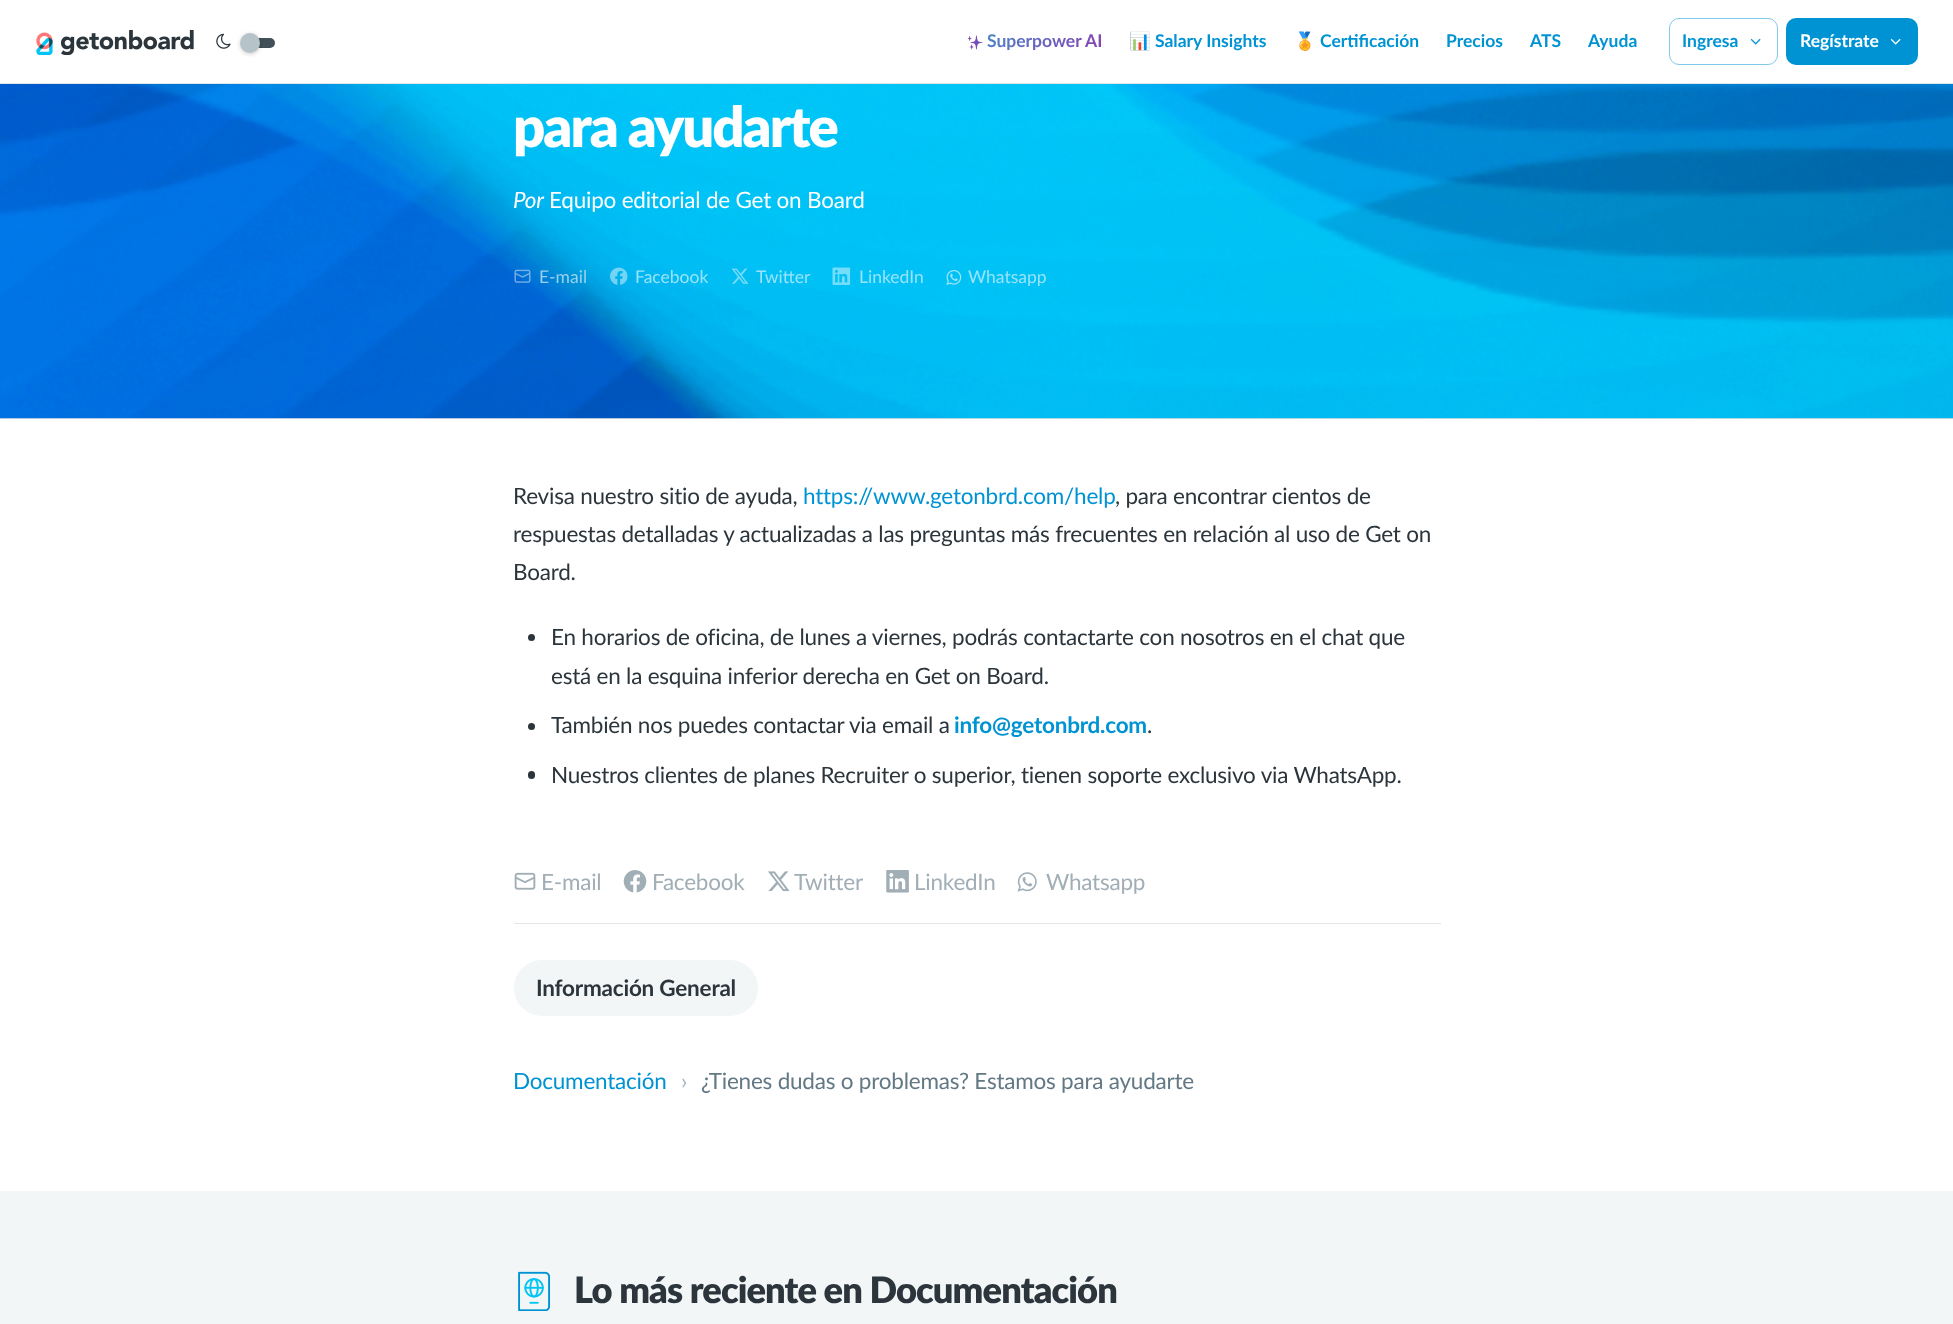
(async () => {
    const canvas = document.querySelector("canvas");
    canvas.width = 1953;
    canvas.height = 1324;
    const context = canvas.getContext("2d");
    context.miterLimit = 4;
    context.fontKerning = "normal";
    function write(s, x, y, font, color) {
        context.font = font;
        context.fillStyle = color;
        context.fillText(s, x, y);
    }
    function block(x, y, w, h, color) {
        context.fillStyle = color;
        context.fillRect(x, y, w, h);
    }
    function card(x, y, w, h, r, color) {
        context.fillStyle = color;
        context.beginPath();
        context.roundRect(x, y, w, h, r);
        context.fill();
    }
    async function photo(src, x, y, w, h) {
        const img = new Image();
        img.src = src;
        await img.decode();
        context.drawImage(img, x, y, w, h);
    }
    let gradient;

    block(0, 0, 1953, 1324, "rgb(255, 255, 255)");
    block(0, 83, 1953, 1, "rgb(225, 230, 231)");
    await photo("media/1.png", 36, 30, 158, 25);
    await photo("media/2.png", 216, 33, 15, 16);
    card(250, 38, 25, 10, 5, "rgb(65, 80, 89)");
    context.fillStyle = "rgba(0, 0, 0, 0.2)";
    context.filter = "blur(2px)";
    context.beginPath();
    context.roundRect(240, 34, 20, 20, 10);
    context.fill();
    context.filter = "none";
    context.fillStyle = "rgb(182, 195, 201)";
    context.beginPath();
    context.arc(250, 43, 10, 0, Math.PI * 2);
    context.fill();
    await photo("media/3.png", 968, 35, 15, 15);
    context.font = "bold 17.5px Lato";
    gradient = context.createLinearGradient(996, 1.4, 1074, 79);
    gradient.addColorStop(0, "rgb(64, 145, 205)");
    gradient.addColorStop(1, "rgb(136, 66, 178)");
    context.fillStyle = gradient;
    context.fillText("Superpower AI", 987, 47);
    write("📊", 1129, 47, "bold 17.5px Noto Color Emoji", "rgb(0, 147, 211)");
    write("Salary Insights", 1155, 47, "bold 17.5px Lato", "rgb(0, 147, 211)");
    write("🏅", 1294, 47, "bold 17.5px Noto Color Emoji", "rgb(0, 147, 211)");
    write("Certificación", 1320, 47, "bold 17.5px Lato", "rgb(0, 147, 211)");
    write("Precios", 1446, 47, "bold 17.5px Lato", "rgb(0, 147, 211)");
    write("ATS", 1530, 47, "bold 17.5px Lato", "rgb(0, 147, 211)");
    write("Ayuda", 1588, 47, "bold 17.5px Lato", "rgb(0, 147, 211)");
    context.beginPath();
    context.roundRect(1669.5, 18.5, 108, 46, 9.5);
    context.strokeStyle = "rgb(128, 201, 233)";
    context.stroke();
    write("Ingresa", 1682, 47, "bold 17.5px Lato", "rgb(0, 147, 211)");
    await photo("media/4.png", 1750, 38, 11, 7);
    card(1786, 18, 132, 47, 10, "rgb(0, 147, 211)");
    write("Regístrate", 1800, 47, "bold 17.5px Lato", "rgb(255, 255, 255)");
    await photo("media/5.png", 1890, 38, 11, 7);
    await photo("media/6.png", 0, 84, 1953, 335);
    block(0, 418, 1953, 1, "rgba(135, 153, 160, 0.25)");
    context.letterSpacing = "-2px";
    write("para ayudarte", 513, 147, "900 56.25px Lato", "rgb(255, 255, 255)");
    context.letterSpacing = "-0.22px";
    write("Por", 513, 208, "italic 22.5px Lato", "rgb(255, 255, 255)");
    write("Equipo editorial de Get on Board", 549, 208, "22.5px Lato", "rgb(255, 255, 255)");
    await photo("media/7.png", 514, 269, 17, 14);
    context.letterSpacing = "0px";
    write("E-mail", 539, 283, "17.5px Lato", "rgb(153, 209, 239)");
    await photo("media/8.png", 610, 267, 18, 18);
    write("Facebook", 635, 283, "17.5px Lato", "rgb(153, 227, 250)");
    await photo("media/9.png", 731, 268, 18, 16);
    write("Twitter", 756, 283, "17.5px Lato", "rgb(153, 227, 250)");
    await photo("media/10.png", 832, 267, 19, 18);
    write("LinkedIn", 859, 283, "17.5px Lato", "rgb(153, 227, 250)");
    await photo("media/11.png", 946, 270, 16, 15);
    write("Whatsapp", 968, 283, "17.5px Lato", "rgb(153, 227, 250)");
    context.letterSpacing = "-0.22px";
    write("Revisa nuestro sitio de ayuda,", 513, 504, "22.5px Lato", "rgb(43, 53, 59)");
    write("https://www.getonbrd.com/help", 803, 504, "22.5px Lato", "rgb(0, 147, 211)");
    write(", para encontrar cientos de", 1115, 504, "22.5px Lato", "rgb(43, 53, 59)");
    write("respuestas detalladas y actualizadas a las preguntas más frecuentes en relación al uso de Get on", 513, 542, "22.5px Lato", "rgb(43, 53, 59)");
    write("Board.", 513, 580, "22.5px Lato", "rgb(43, 53, 59)");
    context.beginPath();
    context.arc(531.5, 637.5, 3.5, 0, Math.PI * 2);
    context.fill();
    write("En horarios de oficina, de lunes a viernes, podrás contactarte con nosotros en el chat que", 551, 645, "22.5px Lato", "rgb(43, 53, 59)");
    write("está en la esquina inferior derecha en Get on Board.", 551, 684, "22.5px Lato", "rgb(43, 53, 59)");
    context.beginPath();
    context.arc(531.5, 726.5, 3.5, 0, Math.PI * 2);
    context.fill();
    write("También nos puedes contactar via email a", 551, 733, "22.5px Lato", "rgb(43, 53, 59)");
    write("info@getonbrd.com", 954, 733, "bold 22.5px Lato", "rgb(0, 147, 211)");
    write(".", 1147, 733, "22.5px Lato", "rgb(43, 53, 59)");
    card(528, 771, 7, 8, 3.5, "rgb(43, 53, 59)");
    write("Nuestros clientes de planes Recruiter o superior, tienen soporte exclusivo via WhatsApp.", 551, 783, "22.5px Lato", "rgb(43, 53, 59)");
    block(514, 923, 927, 1, "rgb(225, 230, 231)");
    await photo("media/12.png", 514, 872, 22, 18);
    write("E-mail", 541, 890, "22.5px Lato", "rgb(161, 174, 181)");
    await photo("media/13.png", 623, 870, 24, 23);
    write("Facebook", 652, 890, "22.5px Lato", "rgb(161, 174, 181)");
    await photo("media/14.png", 768, 871, 22, 21);
    write("Twitter", 794, 890, "22.5px Lato", "rgb(161, 174, 181)");
    await photo("media/15.png", 886, 870, 23, 23);
    write("LinkedIn", 914, 890, "22.5px Lato", "rgb(161, 174, 181)");
    await photo("media/16.png", 1017, 872, 20, 20);
    write("Whatsapp", 1046, 890, "22.5px Lato", "rgb(161, 174, 181)");
    card(514, 960, 244, 56, 28, "rgb(242, 246, 247)");
    write("Información General", 536, 996, "bold 22.5px Lato", "rgb(43, 53, 59)");
    write("Documentación", 513, 1089, "22.5px Lato", "rgb(0, 147, 211)");
    write("›", 681, 1089, "22.5px Lato", "rgb(167, 183, 190)");
    write("¿Tienes dudas o problemas? Estamos para ayudarte", 701, 1089, "22.5px Lato", "rgb(98, 120, 132)");
    block(0, 1191, 1953, 133, "rgb(242, 246, 247)");
    await photo("media/17.png", 518, 1271, 32, 40);
    context.letterSpacing = "-0.9px";
    write("Lo más reciente en Documentación", 574, 1303, "900 36.25px Lato", "rgb(43, 53, 59)");
})();
